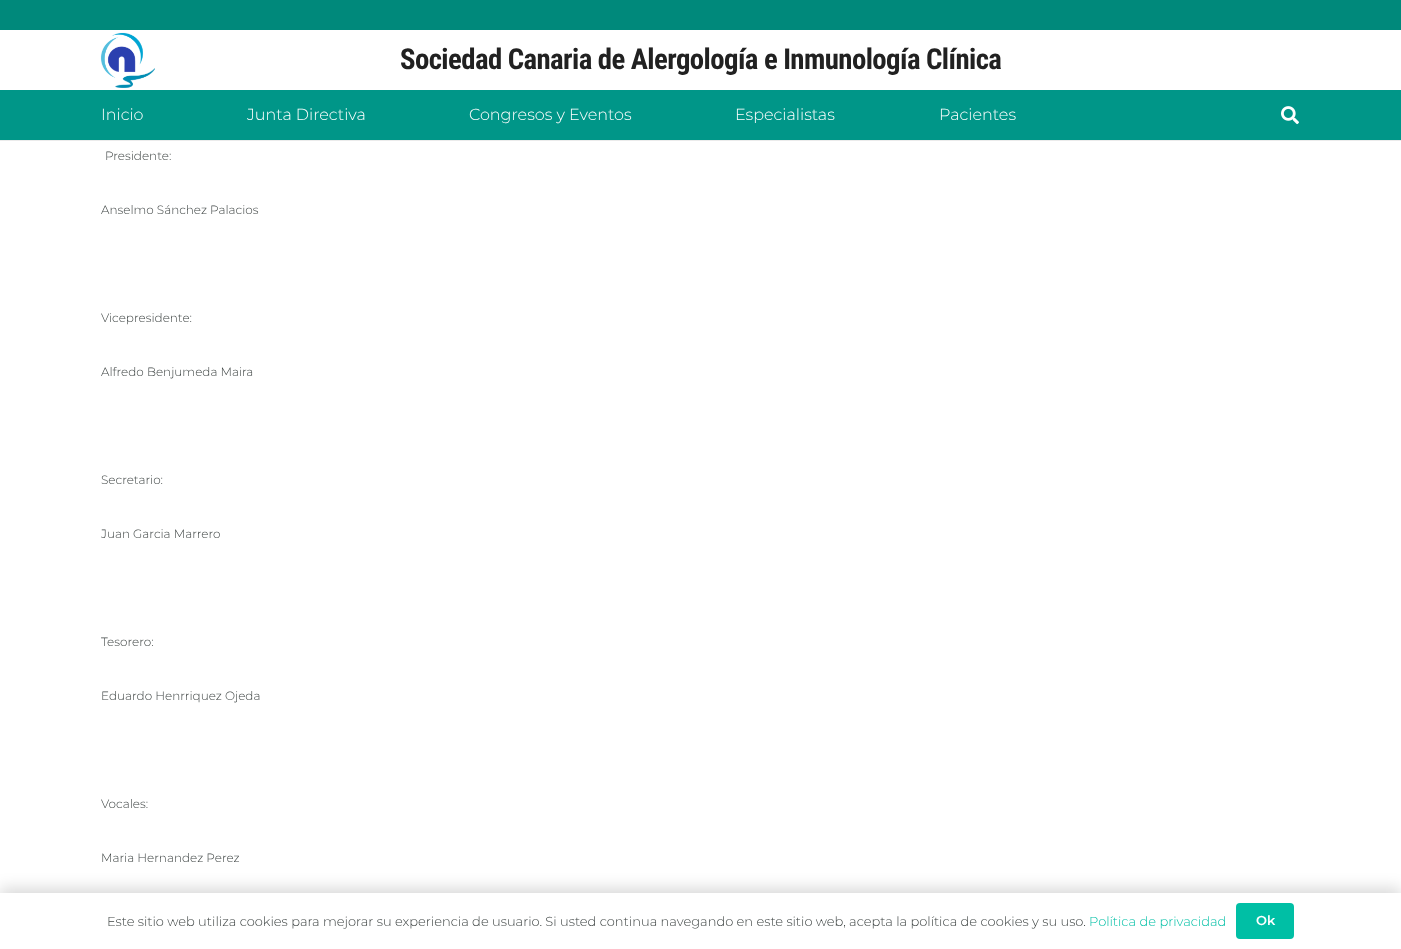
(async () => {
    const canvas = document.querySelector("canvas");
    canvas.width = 1401;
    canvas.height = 949;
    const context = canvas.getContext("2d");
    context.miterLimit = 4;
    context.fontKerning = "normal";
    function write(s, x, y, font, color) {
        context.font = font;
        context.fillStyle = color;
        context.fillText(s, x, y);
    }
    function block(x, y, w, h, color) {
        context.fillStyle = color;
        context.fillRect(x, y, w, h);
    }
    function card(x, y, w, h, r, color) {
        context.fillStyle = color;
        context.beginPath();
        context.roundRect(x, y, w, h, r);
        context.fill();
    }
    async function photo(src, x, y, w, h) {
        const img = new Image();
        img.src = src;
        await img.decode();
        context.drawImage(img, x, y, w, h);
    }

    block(0, 0, 1401, 949, "rgb(255, 255, 255)");
    block(0, 0, 1401, 30, "rgb(0, 137, 123)");
    await photo("media/1.png", 100, 32, 55, 56);
    context.letterSpacing = "-0.58px";
    write("Sociedad Canaria de Alergología e Inmunología Clínica", 400, 69, "bold 28.8px Roboto Condensed", "rgb(33, 33, 33)");
    block(0, 140, 1401, 1, "rgb(235, 235, 235)");
    block(0, 90, 1401, 50, "rgb(0, 150, 136)");
    context.letterSpacing = "0px";
    write("Inicio", 101, 120, "300 16px Montserrat", "rgb(255, 255, 255)");
    write("Junta Directiva", 247, 120, "300 16px Montserrat", "rgb(255, 255, 255)");
    write("Congresos y Eventos", 469, 120, "300 16px Montserrat", "rgb(255, 255, 255)");
    write("Especialistas", 735, 120, "300 16px Montserrat", "rgb(255, 255, 255)");
    write("Pacientes", 939, 120, "300 16px Montserrat", "rgb(255, 255, 255)");
    await photo("media/2.png", 1281, 106, 18, 19);
    write("Presidente:", 105, 160, "300 12px Montserrat", "rgb(63, 69, 68)");
    write("Anselmo Sánchez Palacios", 101, 214, "300 12px Montserrat", "rgb(63, 69, 68)");
    write("Vicepresidente:", 101, 322, "300 12px Montserrat", "rgb(63, 69, 68)");
    write("Alfredo Benjumeda Maira", 101, 376, "300 12px Montserrat", "rgb(63, 69, 68)");
    write("Secretario:", 101, 484, "300 12px Montserrat", "rgb(63, 69, 68)");
    write("Juan Garcia Marrero", 101, 538, "300 12px Montserrat", "rgb(63, 69, 68)");
    write("Tesorero:", 101, 646, "300 12px Montserrat", "rgb(63, 69, 68)");
    write("Eduardo Henrriquez Ojeda", 101, 700, "300 12px Montserrat", "rgb(63, 69, 68)");
    write("Vocales:", 101, 808, "300 12px Montserrat", "rgb(63, 69, 68)");
    write("Maria Hernandez Perez", 101, 862, "300 12px Montserrat", "rgb(63, 69, 68)");
    context.fillStyle = "rgba(0, 0, 0, 0.15)";
    context.filter = "blur(7.5px)";
    context.beginPath();
    context.rect(0, 888, 1401, 56);
    context.fill();
    context.filter = "none";
    block(0, 893, 1401, 56, "rgb(255, 255, 255)");
    write("Este sitio web utiliza cookies para mejorar su experiencia de usuario. Si usted continua navegando en este sitio web, acepta la política de cookies y su uso.", 107, 926, "300 13px Montserrat", "rgb(63, 69, 68)");
    write("Política de privacidad", 1089, 926, "300 13px Montserrat", "rgb(0, 191, 165)");
    card(1236, 903, 58, 36, 4, "rgb(0, 191, 165)");
    write("Ok", 1256, 925, "600 13px Montserrat", "rgb(255, 255, 255)");
})();
